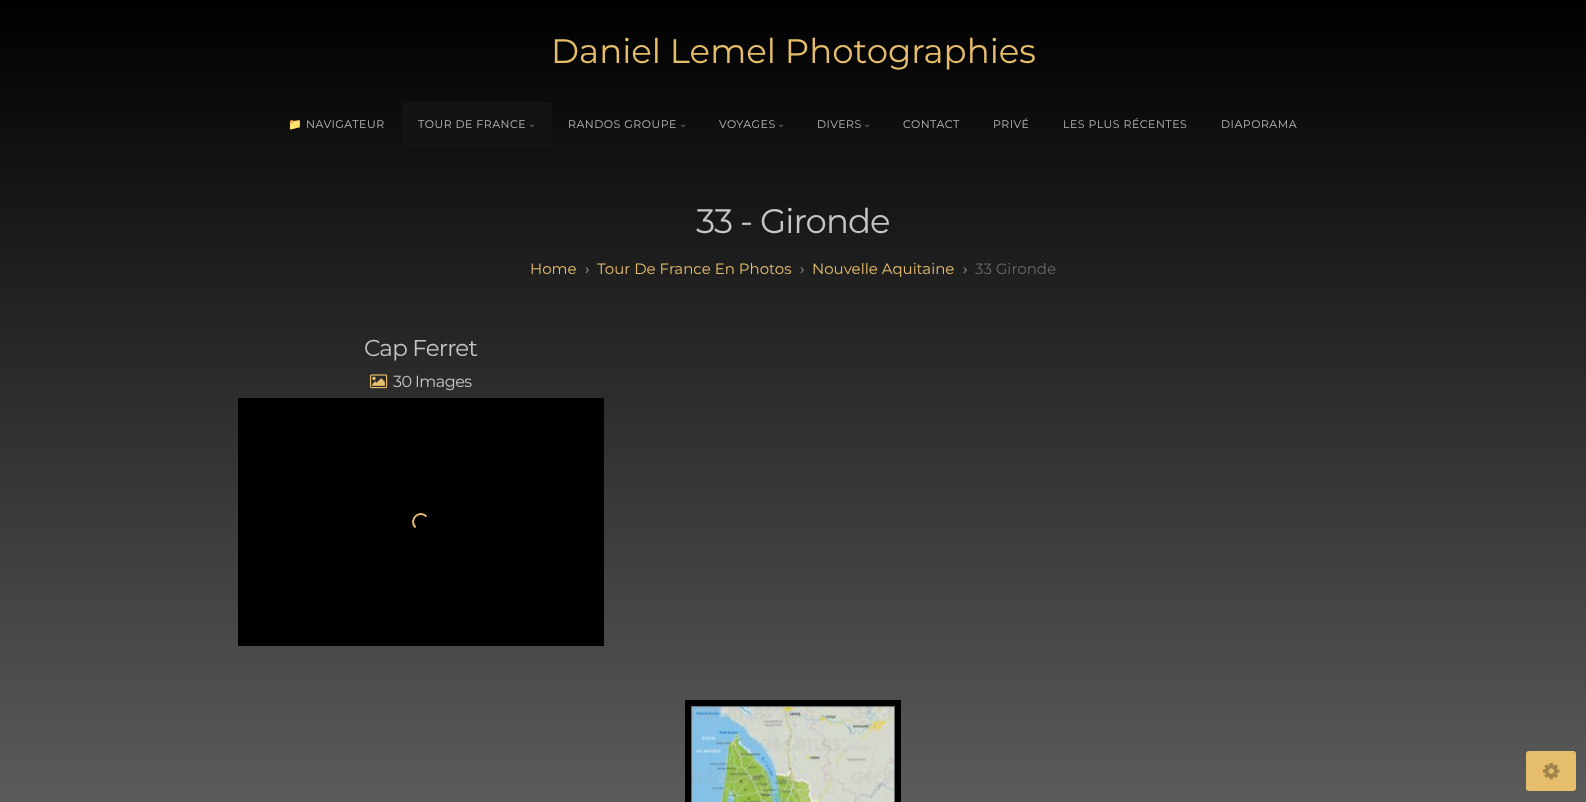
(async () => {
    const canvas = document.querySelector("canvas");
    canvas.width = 1586;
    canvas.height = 802;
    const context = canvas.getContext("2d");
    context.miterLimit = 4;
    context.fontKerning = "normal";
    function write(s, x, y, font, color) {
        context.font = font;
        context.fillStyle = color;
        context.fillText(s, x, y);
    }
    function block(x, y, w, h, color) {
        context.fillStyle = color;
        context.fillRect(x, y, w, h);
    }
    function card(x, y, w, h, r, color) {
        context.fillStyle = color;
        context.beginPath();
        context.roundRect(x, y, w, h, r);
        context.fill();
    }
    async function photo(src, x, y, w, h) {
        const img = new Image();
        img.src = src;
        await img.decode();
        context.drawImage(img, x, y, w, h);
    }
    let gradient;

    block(0, 0, 1586, 802, "rgb(255, 255, 255)");
    gradient = context.createLinearGradient(793, 0, 793, 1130);
    gradient.addColorStop(0, "rgb(0, 0, 0)");
    gradient.addColorStop(1, "rgb(128, 128, 128)");
    context.fillStyle = gradient;
    context.fillRect(0, 0, 1586, 802);
    write("Daniel Lemel Photographies", 551, 63, "100 34px Montserrat", "rgb(230, 189, 107)");
    context.letterSpacing = "0.5px";
    write("📁", 288, 128, "11px Noto Color Emoji", "rgb(187, 187, 187)");
    write("NAVIGATEUR", 306, 128, "100 11px Montserrat", "rgb(187, 187, 187)");
    context.fillStyle = "rgb(19, 19, 19)";
    context.beginPath();
    context.roundRect(402, 102, 150, 44, [3, 3, 0, 0]);
    context.fill();
    write("TOUR DE FRANCE", 418, 128, "100 11px Montserrat", "rgb(187, 187, 187)");
    await photo("media/1.png", 530, 124, 4, 3);
    write("RANDOS GROUPE", 568, 128, "100 11px Montserrat", "rgb(187, 187, 187)");
    await photo("media/2.png", 681, 124, 4, 3);
    write("VOYAGES", 719, 128, "100 11px Montserrat", "rgb(187, 187, 187)");
    await photo("media/2.png", 779, 124, 4, 3);
    write("DIVERS", 817, 128, "100 11px Montserrat", "rgb(187, 187, 187)");
    await photo("media/2.png", 865, 124, 4, 3);
    write("CONTACT", 903, 128, "100 11px Montserrat", "rgb(187, 187, 187)");
    write("PRIVÉ", 993, 128, "100 11px Montserrat", "rgb(187, 187, 187)");
    write("LES PLUS RÉCENTES", 1063, 128, "100 11px Montserrat", "rgb(187, 187, 187)");
    write("DIAPORAMA", 1221, 128, "100 11px Montserrat", "rgb(187, 187, 187)");
    context.letterSpacing = "-1px";
    write("33 - Gironde", 696, 233, "100 34px Montserrat", "rgb(197, 197, 197)");
    context.letterSpacing = "0px";
    write("Home", 530, 274, "100 15px Montserrat", "rgb(230, 189, 107)");
    write("›", 585, 274, "100 15px Montserrat", "rgb(159, 159, 159)");
    write("Tour De France En Photos", 597, 274, "100 15px Montserrat", "rgb(230, 189, 107)");
    write("›", 800, 274, "100 15px Montserrat", "rgb(159, 159, 159)");
    write("Nouvelle Aquitaine", 812, 274, "100 15px Montserrat", "rgb(230, 189, 107)");
    write("›", 963, 274, "100 15px Montserrat", "rgb(159, 159, 159)");
    write("33 Gironde", 975, 274, "100 15px Montserrat", "rgb(102, 102, 102)");
    context.letterSpacing = "-0.75px";
    write("Cap Ferret", 364, 356, "100 23px Montserrat", "rgb(197, 197, 197)");
    await photo("media/3.png", 370, 374, 18, 15);
    context.letterSpacing = "-0.5px";
    write("30", 393, 387, "100 16px Montserrat", "rgb(197, 197, 197)");
    write("Images", 415, 387, "100 16px Montserrat", "rgb(197, 197, 197)");
    block(238, 398, 366, 248, "rgb(0, 0, 0)");
    context.beginPath();
    context.moveTo(415.5, 527.5);
    context.bezierCurveTo(408, 520, 419, 509, 426.5, 516.5);
    context.strokeStyle = "rgb(230, 189, 107)";
    context.lineWidth = 2;
    context.stroke();
    block(685, 700, 216, 102, "rgb(0, 0, 0)");
    await photo("media/4.png", 691, 706, 204, 96);
    card(1526, 751, 50, 40, 3, "rgb(230, 189, 107)");
    await photo("media/5.png", 1543, 763, 17, 17);
})();
